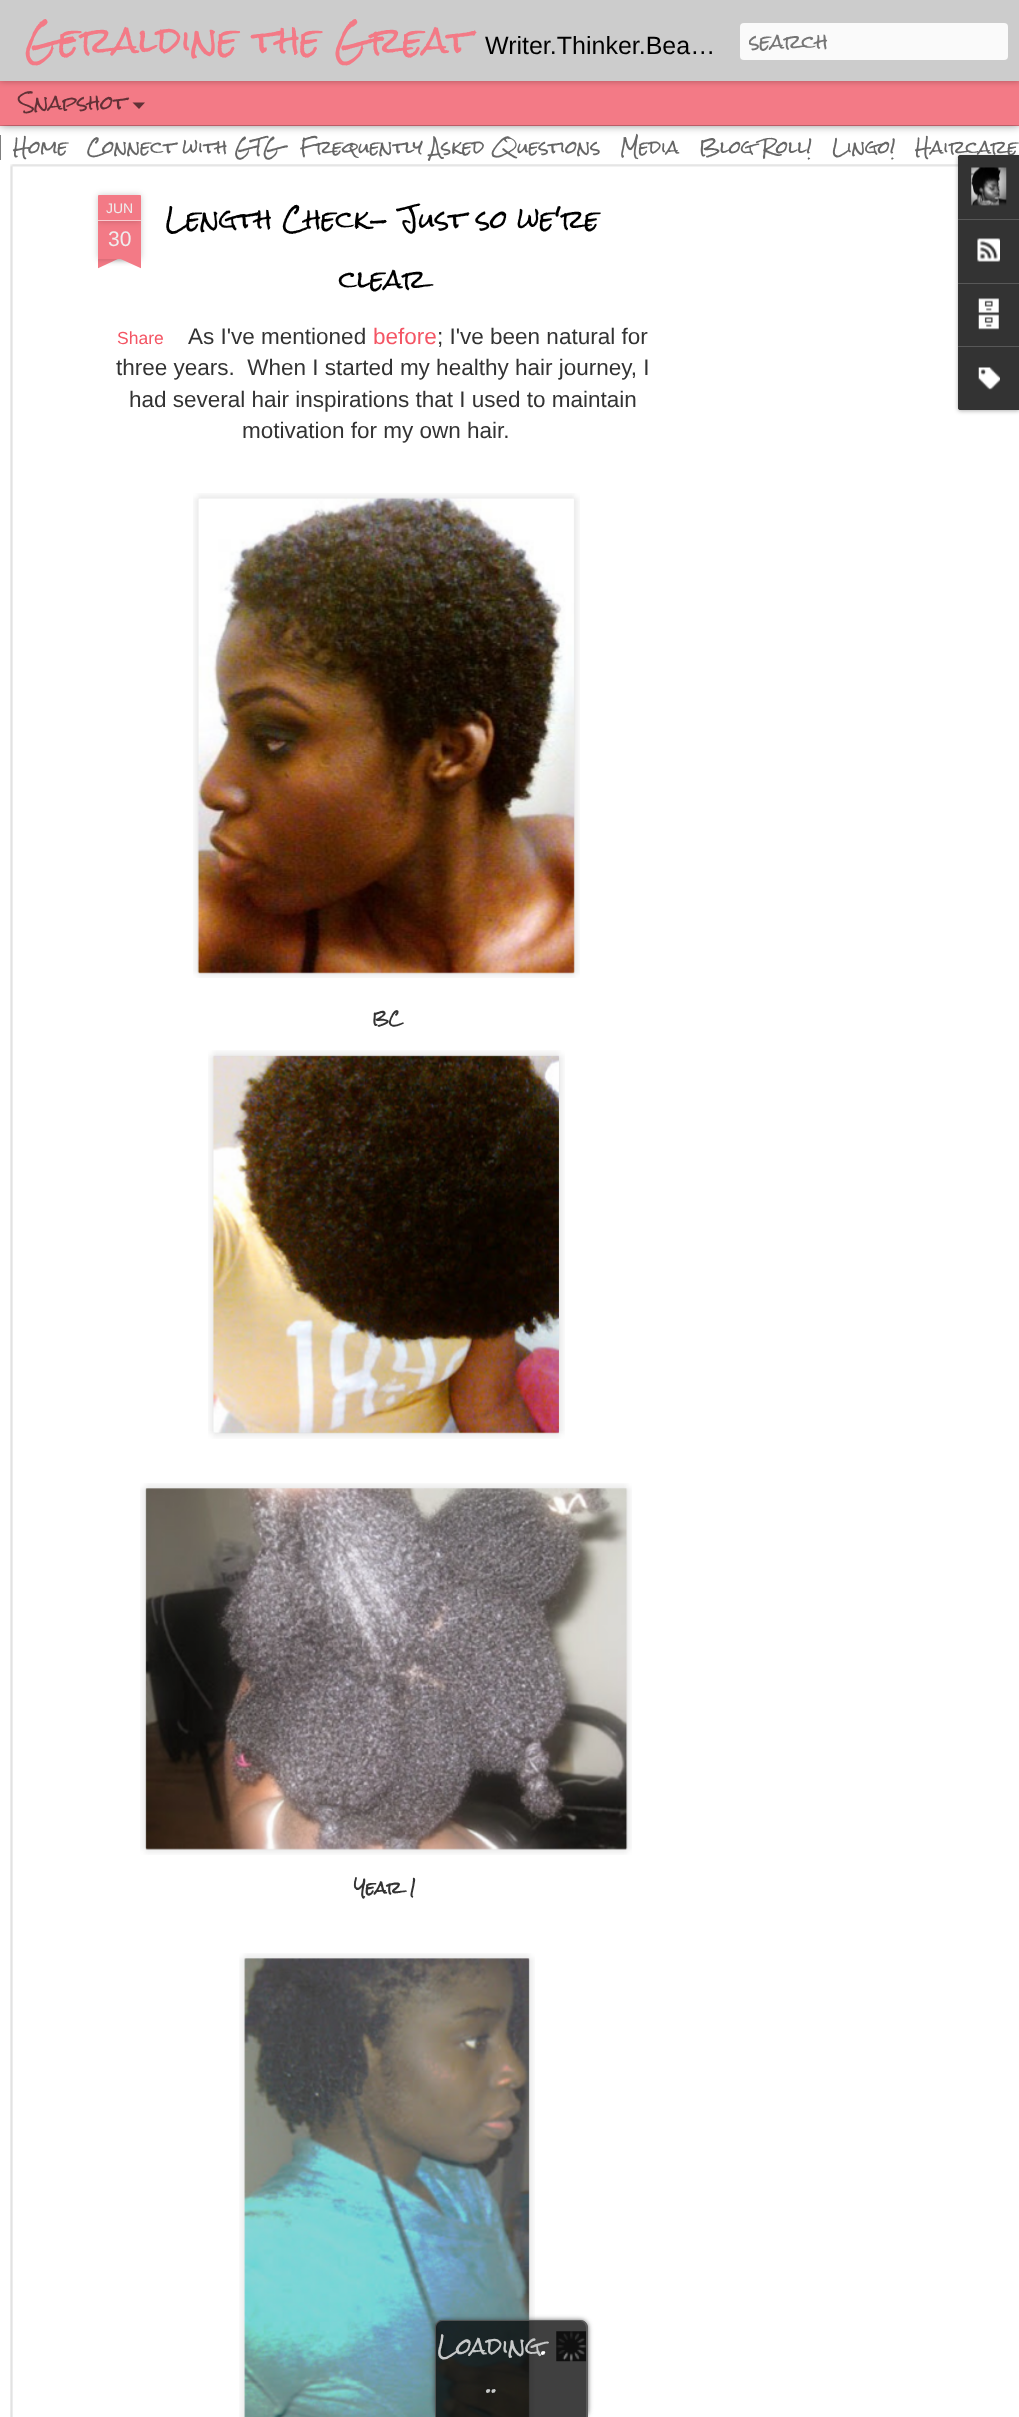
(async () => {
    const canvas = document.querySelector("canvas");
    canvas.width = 1019;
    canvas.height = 2417;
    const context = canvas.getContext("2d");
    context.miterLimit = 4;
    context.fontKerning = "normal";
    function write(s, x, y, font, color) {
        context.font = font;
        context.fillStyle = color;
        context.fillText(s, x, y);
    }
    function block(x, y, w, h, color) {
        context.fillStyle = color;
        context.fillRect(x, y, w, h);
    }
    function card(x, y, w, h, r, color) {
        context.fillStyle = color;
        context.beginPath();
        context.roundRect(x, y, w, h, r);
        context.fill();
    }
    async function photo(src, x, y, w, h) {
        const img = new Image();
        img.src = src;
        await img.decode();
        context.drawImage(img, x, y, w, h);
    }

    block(0, 0, 1019, 2417, "rgb(243, 122, 134)");
    block(0, 126, 1019, 2291, "rgb(255, 255, 255)");
    context.fillStyle = "rgba(0, 0, 0, 0.5)";
    context.filter = "blur(5px)";
    context.beginPath();
    context.rect(0, 81, 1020, 44);
    context.fill();
    context.filter = "none";
    block(0, 81, 1019, 44, "rgb(243, 122, 134)");
    context.fillStyle = "rgba(0, 0, 0, 0.3)";
    context.filter = "blur(3px)";
    context.beginPath();
    context.rect(0, 0, 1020, 81);
    context.fill();
    context.filter = "none";
    block(0, 0, 1019, 81, "rgb(204, 204, 204)");
    write("Geraldine the Great", 25, 54, "35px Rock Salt", "rgb(243, 122, 134)");
    write("Writer.Thinker.Bea…", 485, 54, "25px Liberation Sans", "rgb(0, 0, 0)");
    card(740, 23, 268, 37, 4, "rgb(250, 250, 250)");
    context.save();
    context.beginPath();
    context.rect(749, 19, 250, 45);
    context.clip();
    write("search", 749, 49, "18.75px Rock Salt", "rgb(117, 117, 117)");
    context.restore();
    write("Snapshot", 19, 110, "18.75px Rock Salt", "rgb(97, 49, 54)");
    context.beginPath();
    context.moveTo(132.5, 102.5);
    context.lineTo(145, 102.5);
    context.lineTo(139, 109);
    context.closePath();
    context.fill();
    block(0, 135, 1, 25, "rgb(127, 127, 127)");
    write("Home", 13, 154, "17.5px Rock Salt", "rgb(102, 102, 102)");
    write("Connect with GTG", 87, 154, "17.5px Rock Salt", "rgb(102, 102, 102)");
    write("Frequently Asked Questions", 300, 154, "17.5px Rock Salt", "rgb(102, 102, 102)");
    write("Media", 620, 154, "17.5px Rock Salt", "rgb(102, 102, 102)");
    write("Blog Roll!", 699, 154, "17.5px Rock Salt", "rgb(102, 102, 102)");
    write("Lingo!", 832, 154, "17.5px Rock Salt", "rgb(102, 102, 102)");
    write("Haircare", 915, 154, "17.5px Rock Salt", "rgb(102, 102, 102)");
    await photo("media/1.png", 10, 164, 948, 2253);
    context.fillStyle = "rgba(0, 0, 0, 0.2)";
    context.filter = "blur(3px)";
    context.beginPath();
    context.rect(98, 221, 43, 38);
    context.fill();
    context.filter = "none";
    block(98, 221, 43, 38, "rgb(243, 122, 134)");
    context.fillStyle = "rgba(0, 0, 0, 0.2)";
    context.filter = "blur(3px)";
    context.beginPath();
    context.roundRect(98, 195, 43, 26, 1);
    context.fill();
    context.filter = "none";
    context.fillStyle = "rgb(243, 122, 134)";
    context.beginPath();
    context.roundRect(98, 195, 43, 26, [1, 1, 0, 0]);
    context.fill();
    block(98, 220, 43, 1, "rgb(250, 202, 207)");
    write("JUN", 106, 213, "14px Liberation Sans", "rgb(238, 238, 238)");
    write("30", 108, 246, "21px Liberation Sans", "rgb(238, 238, 238)");
    context.save();
    context.beginPath();
    context.rect(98, 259, 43, 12);
    context.clip();
    context.fillStyle = "rgba(0, 0, 0, 0.2)";
    context.filter = "blur(3px)";
    context.beginPath();
    context.rect(86, 246, 63, 13);
    context.fill();
    context.filter = "none";
    context.restore();
    context.save();
    context.beginPath();
    context.rect(98, 259, 43, 12);
    context.clip();
    context.fillStyle = "rgb(243, 122, 134)";
    context.beginPath();
    context.moveTo(87, 260);
    context.lineTo(143, 234);
    context.lineTo(148, 245);
    context.lineTo(92, 271);
    context.closePath();
    context.fill();
    context.restore();
    context.save();
    context.beginPath();
    context.rect(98, 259, 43, 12);
    context.clip();
    context.fillStyle = "rgba(0, 0, 0, 0.2)";
    context.filter = "blur(3px)";
    context.beginPath();
    context.rect(90, 246, 63, 13);
    context.fill();
    context.filter = "none";
    context.restore();
    context.save();
    context.beginPath();
    context.rect(98, 259, 43, 12);
    context.clip();
    context.fillStyle = "rgb(243, 122, 134)";
    context.beginPath();
    context.moveTo(96, 234);
    context.lineTo(152, 260);
    context.lineTo(147, 271);
    context.lineTo(90, 245);
    context.closePath();
    context.fill();
    context.restore();
    write("Length Check- Just so we're", 165, 229, "25px Rock Salt", "rgb(0, 0, 0)");
    write("clear", 339, 289, "25px Rock Salt", "rgb(0, 0, 0)");
    write("Share", 117, 344, "17.5px Liberation Sans", "rgb(244, 85, 100)");
    write("As I've mentioned", 188, 344, "22.5px Liberation Sans", "rgb(51, 51, 51)");
    write("before", 373, 344, "22.5px Liberation Sans", "rgb(244, 85, 100)");
    write("; I've been natural for", 437, 344, "22.5px Liberation Sans", "rgb(51, 51, 51)");
    write("three years.  When I started my healthy hair journey, I", 116, 375, "22.5px Liberation Sans", "rgb(51, 51, 51)");
    write("had several hair inspirations that I used to maintain", 129, 407, "22.5px Liberation Sans", "rgb(51, 51, 51)");
    write("motivation for my own hair.", 242, 438, "22.5px Liberation Sans", "rgb(51, 51, 51)");
    await photo("media/2.png", 193, 493, 387, 485);
    await photo("media/3.png", 197, 497, 378, 477);
    write("BC", 372, 1024, "bold 14px Rock Salt", "rgb(51, 51, 51)");
    await photo("media/4.png", 208, 1050, 357, 389);
    await photo("media/5.png", 213, 1055, 346, 379);
    await photo("media/6.png", 140, 1483, 492, 372);
    await photo("media/7.png", 145, 1488, 483, 362);
    write("Year 1", 354, 1894, "bold 16px Rock Salt", "rgb(51, 51, 51)");
    await photo("media/8.png", 239, 1953, 296, 464);
    await photo("media/9.png", 244, 1958, 286, 459);
    context.fillStyle = "rgba(0, 0, 0, 0.3)";
    context.filter = "blur(2px)";
    context.beginPath();
    context.roundRect(958, 156, 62, 255, 2.5);
    context.fill();
    context.filter = "none";
    context.fillStyle = "rgb(51, 51, 51)";
    context.beginPath();
    context.moveTo(960.5, 155);
    context.lineTo(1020, 155);
    context.lineTo(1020, 410);
    context.lineTo(960.5, 410);
    context.bezierCurveTo(959, 410, 958, 409, 958, 407.5);
    context.lineTo(958, 157.5);
    context.bezierCurveTo(958, 156, 959, 155, 960.5, 155);
    context.closePath();
    context.fill();
    context.beginPath();
    context.moveTo(960.5, 155);
    context.lineTo(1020, 155);
    context.lineTo(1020, 219);
    context.lineTo(958, 219);
    context.lineTo(958, 157.5);
    context.bezierCurveTo(958, 156, 959, 155, 960.5, 155);
    context.closePath();
    context.fill();
    await photo("media/10.png", 971, 167, 36, 39);
    block(958, 219, 61, 1, "rgb(88, 88, 88)");
    await photo("media/11.png", 977, 238, 23, 24);
    block(958, 283, 61, 1, "rgb(88, 88, 88)");
    await photo("media/12.png", 978, 298, 21, 32);
    context.fillStyle = "rgb(51, 51, 51)";
    context.beginPath();
    context.moveTo(958, 346);
    context.lineTo(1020, 346);
    context.lineTo(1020, 410);
    context.lineTo(960.5, 410);
    context.bezierCurveTo(959, 410, 958, 409, 958, 407.5);
    context.closePath();
    context.fill();
    block(958, 346, 61, 1, "rgb(88, 88, 88)");
    await photo("media/13.png", 978, 367, 22, 23);
    context.save();
    context.beginPath();
    context.moveTo(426, 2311);
    context.lineTo(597, 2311);
    context.lineTo(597, 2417);
    context.lineTo(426, 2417);
    context.closePath();
    context.moveTo(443, 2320);
    context.lineTo(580, 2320);
    context.bezierCurveTo(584.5, 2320, 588, 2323.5, 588, 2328);
    context.lineTo(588, 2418);
    context.lineTo(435, 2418);
    context.lineTo(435, 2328);
    context.bezierCurveTo(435, 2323.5, 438.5, 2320, 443, 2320);
    context.closePath();
    context.clip("evenodd");
    context.fillStyle = "rgba(51, 51, 51, 0.75)";
    context.filter = "blur(2.5px)";
    context.beginPath();
    context.roundRect(435, 2320, 153, 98, 8);
    context.fill();
    context.filter = "none";
    context.restore();
    context.fillStyle = "rgba(0, 0, 0, 0.75)";
    context.beginPath();
    context.moveTo(443, 2320);
    context.lineTo(580, 2320);
    context.bezierCurveTo(584.5, 2320, 588, 2323.5, 588, 2328);
    context.lineTo(588, 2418);
    context.lineTo(435, 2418);
    context.lineTo(435, 2328);
    context.bezierCurveTo(435, 2323.5, 438.5, 2320, 443, 2320);
    context.closePath();
    context.fill();
    context.fillStyle = "rgba(102, 102, 102, 0.75)";
    context.beginPath();
    context.moveTo(442, 2320);
    context.lineTo(580, 2320);
    context.bezierCurveTo(584, 2320, 588, 2323, 588, 2328);
    context.lineTo(588, 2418);
    context.lineTo(435, 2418);
    context.lineTo(435, 2328);
    context.bezierCurveTo(435, 2323, 438, 2320, 442, 2320);
    context.closePath();
    context.moveTo(442, 2321);
    context.lineTo(580, 2321);
    context.bezierCurveTo(583, 2321, 586, 2324, 586, 2328);
    context.lineTo(586, 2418);
    context.lineTo(436, 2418);
    context.lineTo(436, 2328);
    context.bezierCurveTo(436, 2324, 439, 2321, 442, 2321);
    context.closePath();
    context.fill("evenodd");
    await photo("media/14.png", 556, 2331, 31, 31);
    write("Loading", 437, 2355, "22.5px Rock Salt", "rgb(199, 201, 201)");
    write(".", 542, 2355, "22.5px Rock Salt", "rgb(255, 255, 255)");
    write("..", 487, 2393, "22.5px Rock Salt", "rgb(199, 201, 201)");
})();
